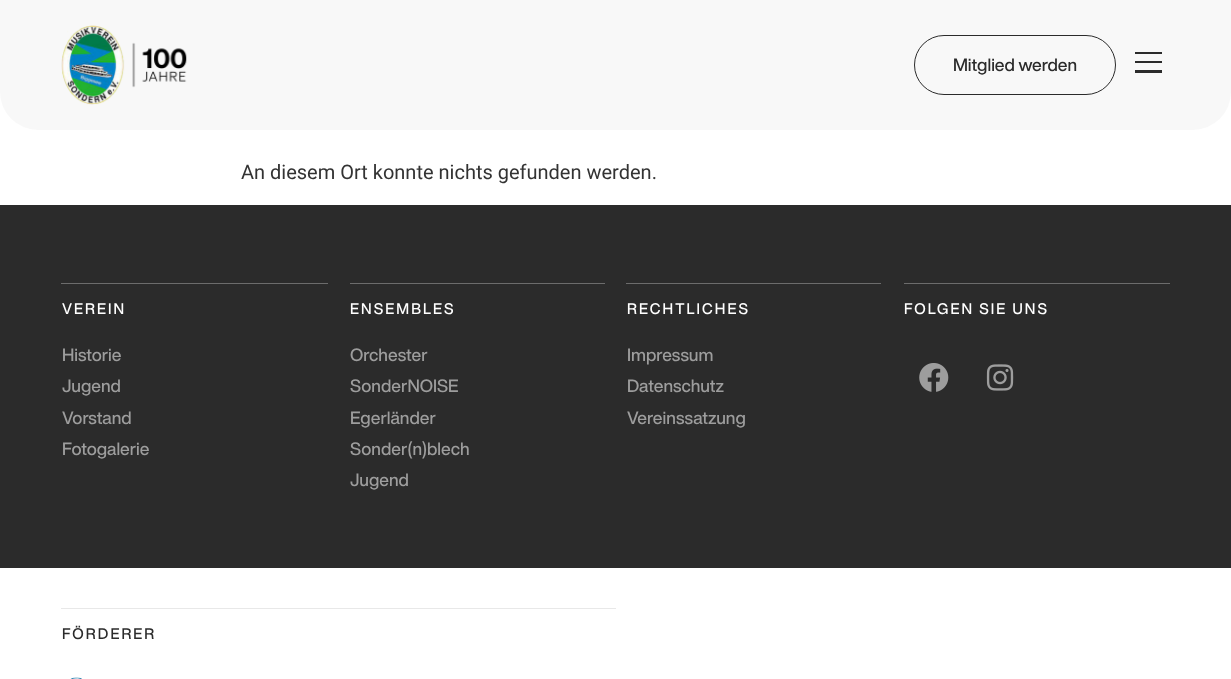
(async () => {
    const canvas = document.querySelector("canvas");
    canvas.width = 1231;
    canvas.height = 679;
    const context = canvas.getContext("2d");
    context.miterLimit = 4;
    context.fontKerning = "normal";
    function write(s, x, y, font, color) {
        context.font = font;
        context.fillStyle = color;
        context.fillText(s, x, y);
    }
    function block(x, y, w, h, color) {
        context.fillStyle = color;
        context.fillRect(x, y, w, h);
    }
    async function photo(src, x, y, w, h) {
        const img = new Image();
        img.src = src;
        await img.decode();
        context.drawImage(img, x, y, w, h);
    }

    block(0, 0, 1231, 679, "rgb(255, 255, 255)");
    context.fillStyle = "rgba(248, 248, 248, 0.93)";
    context.beginPath();
    context.roundRect(0, 0, 1231, 130, [0, 0, 38, 38]);
    context.fill();
    await photo("media/1.png", 61, 25, 126, 80);
    context.beginPath();
    context.roundRect(914.5, 35.5, 201, 59, 29.5);
    context.strokeStyle = "rgb(43, 43, 43)";
    context.stroke();
    write("Mitglied werden", 953, 71, "500 17.5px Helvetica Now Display", "rgb(43, 43, 43)");
    block(1135, 52, 27, 2, "rgb(43, 43, 43)");
    block(1135, 61, 27, 2, "rgb(43, 43, 43)");
    block(1135, 70, 27, 3, "rgb(43, 43, 43)");
    write("An diesem Ort konnte nichts gefunden werden.", 241, 179, "20px Roboto", "rgb(51, 51, 51)");
    block(0, 205, 1231, 363, "rgb(43, 43, 43)");
    block(61, 283, 267, 1, "rgb(108, 108, 108)");
    context.letterSpacing = "2.1px";
    write("VEREIN", 62, 314, "500 15px Helvetica Now Display", "rgb(255, 255, 255)");
    context.letterSpacing = "0px";
    write("Historie", 62, 361, "500 17.5px Helvetica Now Display", "rgb(157, 157, 157)");
    write("Jugend", 62, 392, "500 17.5px Helvetica Now Display", "rgb(157, 157, 157)");
    write("Vorstand", 62, 424, "500 17.5px Helvetica Now Display", "rgb(157, 157, 157)");
    write("Fotogalerie", 62, 455, "500 17.5px Helvetica Now Display", "rgb(157, 157, 157)");
    block(350, 283, 255, 1, "rgb(108, 108, 108)");
    context.letterSpacing = "2.1px";
    write("ENSEMBLES", 350, 314, "500 15px Helvetica Now Display", "rgb(255, 255, 255)");
    context.letterSpacing = "0px";
    write("Orchester", 350, 361, "500 17.5px Helvetica Now Display", "rgb(157, 157, 157)");
    write("SonderNOISE", 350, 392, "500 17.5px Helvetica Now Display", "rgb(157, 157, 157)");
    write("Egerländer", 350, 424, "500 17.5px Helvetica Now Display", "rgb(157, 157, 157)");
    write("Sonder(n)blech", 350, 455, "500 17.5px Helvetica Now Display", "rgb(157, 157, 157)");
    write("Jugend", 350, 486, "500 17.5px Helvetica Now Display", "rgb(157, 157, 157)");
    block(626, 283, 255, 1, "rgb(108, 108, 108)");
    context.letterSpacing = "2.1px";
    write("RECHTLICHES", 627, 314, "500 15px Helvetica Now Display", "rgb(255, 255, 255)");
    context.letterSpacing = "0px";
    write("Impressum", 627, 361, "500 17.5px Helvetica Now Display", "rgb(157, 157, 157)");
    write("Datenschutz", 627, 392, "500 17.5px Helvetica Now Display", "rgb(157, 157, 157)");
    write("Vereinssatzung", 627, 424, "500 17.5px Helvetica Now Display", "rgb(157, 157, 157)");
    block(904, 283, 266, 1, "rgb(108, 108, 108)");
    context.letterSpacing = "2.1px";
    write("FOLGEN SIE UNS", 904, 314, "500 15px Helvetica Now Display", "rgb(255, 255, 255)");
    await photo("media/2.png", 919, 363, 30, 29);
    await photo("media/3.png", 986, 364, 28, 27);
    block(61, 608, 555, 1, "rgb(232, 232, 232)");
    write("FÖRDERER", 62, 639, "500 15px Helvetica Now Display", "rgb(43, 43, 43)");
    await photo("media/4.png", 70, 677, 12, 2);
})();
